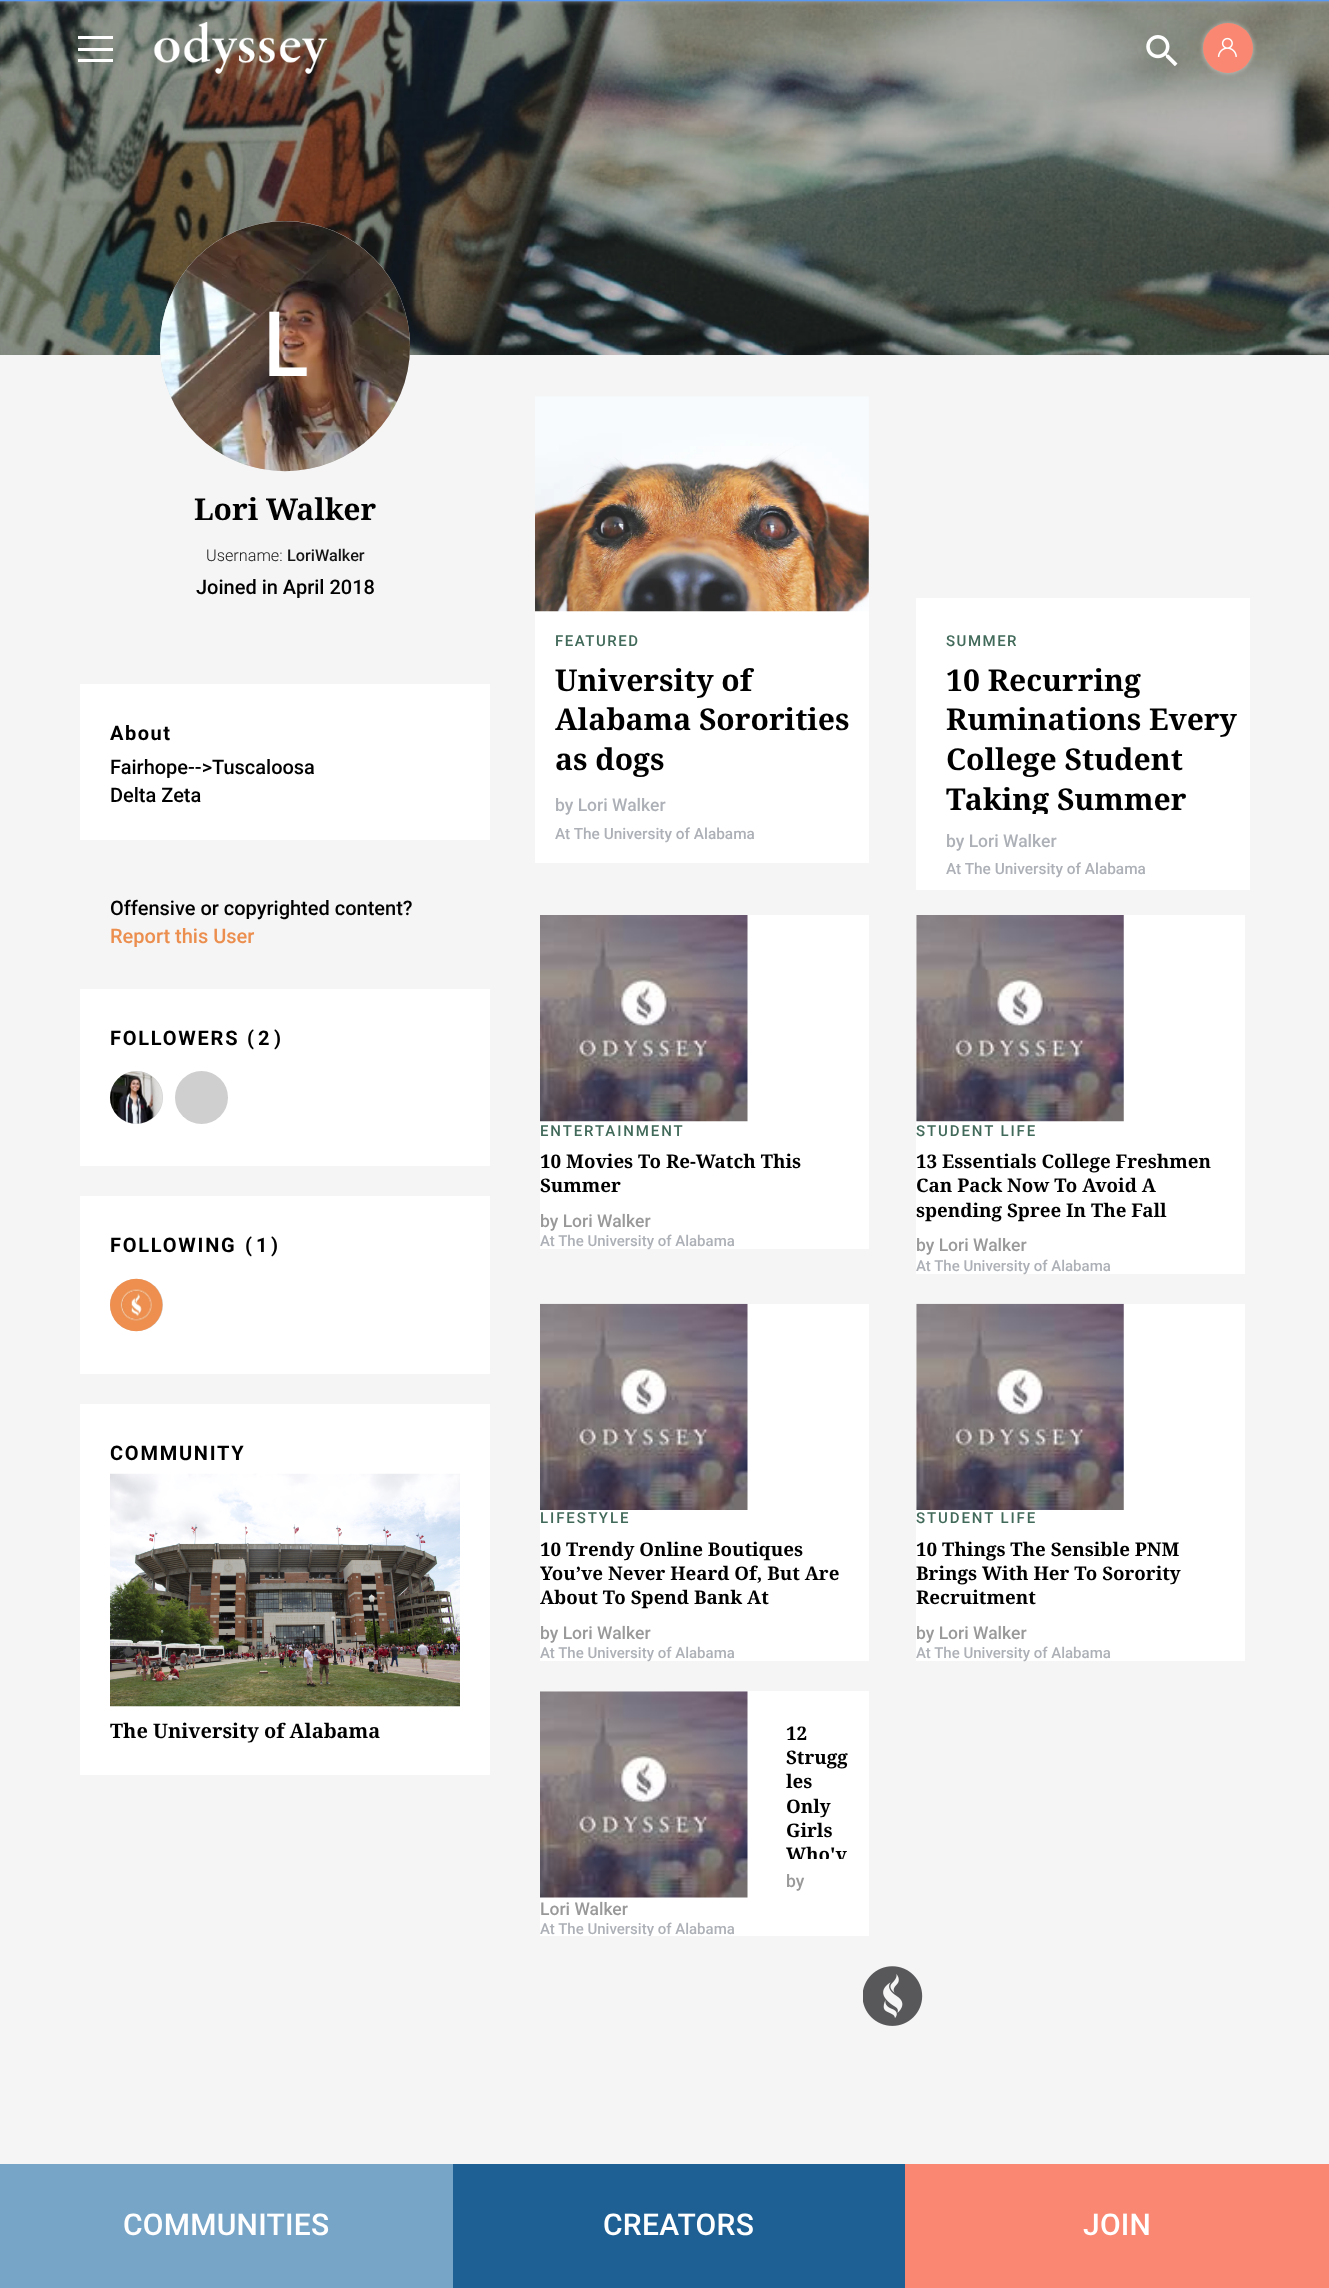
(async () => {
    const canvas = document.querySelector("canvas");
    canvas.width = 1329;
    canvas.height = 2288;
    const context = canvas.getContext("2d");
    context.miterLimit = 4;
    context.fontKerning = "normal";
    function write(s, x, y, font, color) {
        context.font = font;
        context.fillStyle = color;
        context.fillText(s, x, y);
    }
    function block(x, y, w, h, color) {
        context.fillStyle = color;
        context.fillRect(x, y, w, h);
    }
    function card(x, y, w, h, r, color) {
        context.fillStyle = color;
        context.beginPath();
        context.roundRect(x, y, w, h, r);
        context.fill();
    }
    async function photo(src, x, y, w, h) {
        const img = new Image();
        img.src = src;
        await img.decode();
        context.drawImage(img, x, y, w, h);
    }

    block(0, 0, 1329, 2288, "rgb(245, 245, 245)");
    await photo("media/4.png", 0, 0, 1329, 355);
    block(78, 36, 35, 3, "rgb(255, 255, 255)");
    block(78, 48, 35, 3, "rgb(255, 255, 255)");
    block(78, 59, 35, 3, "rgb(255, 255, 255)");
    await photo("media/1.png", 153, 22, 175, 52);
    await photo("media/2.png", 1146, 35, 32, 31);
    context.fillStyle = "rgba(255, 255, 255, 0.5)";
    context.filter = "blur(2.5px)";
    context.beginPath();
    context.roundRect(1203, 23, 50, 50, 25);
    context.fill();
    context.filter = "none";
    context.fillStyle = "rgb(250, 135, 114)";
    context.beginPath();
    context.arc(1228, 48, 25, 0, Math.PI * 2);
    context.fill();
    await photo("media/3.png", 1217, 37, 20, 20);
    context.fillStyle = "rgb(207, 207, 207)";
    context.beginPath();
    context.arc(285, 346, 125, 0, Math.PI * 2);
    context.fill();
    await photo("media/5.png", 159, 221, 251, 251);
    write("L", 261, 376, "500 90px Noto Sans", "rgb(255, 255, 255)");
    write("Lori Walker", 194, 520, "bold 30px Noto Serif", "rgb(0, 0, 0)");
    write("Username:", 206, 561, "300 16.25px Roboto", "rgb(21, 21, 21)");
    write("LoriWalker", 287, 561, "500 16.25px Roboto", "rgb(21, 21, 21)");
    write("Joined in April 2018", 196, 594, "500 20px Roboto", "rgb(0, 0, 0)");
    block(80, 684, 410, 156, "rgb(255, 255, 255)");
    context.letterSpacing = "1.5px";
    write("About", 110, 740, "bold 20px Roboto", "rgb(0, 0, 0)");
    context.letterSpacing = "0px";
    write("Fairhope-->Tuscaloosa", 110, 774, "500 20px Roboto", "rgb(0, 0, 0)");
    write("Delta Zeta", 110, 802, "500 20px Roboto", "rgb(0, 0, 0)");
    write("Offensive or copyrighted content?", 110, 915, "500 20px Roboto", "rgb(0, 0, 0)");
    write("Report this User", 110, 943, "500 20px Roboto", "rgb(235, 142, 78)");
    block(80, 989, 410, 177, "rgb(255, 255, 255)");
    context.letterSpacing = "1.75px";
    write("FOLLOWERS", 110, 1045, "bold 20px Roboto", "rgb(0, 0, 0)");
    write("(", 247, 1045, "bold 20px Roboto", "rgb(0, 0, 0)");
    write("2", 258, 1045, "bold 20px Roboto", "rgb(0, 0, 0)");
    write(")", 274, 1045, "bold 20px Roboto", "rgb(0, 0, 0)");
    context.fillStyle = "rgb(207, 207, 207)";
    context.beginPath();
    context.arc(136.5, 1097.5, 26.5, 0, Math.PI * 2);
    context.fill();
    await photo("media/6.png", 110, 1071, 53, 53);
    context.beginPath();
    context.arc(201.5, 1097.5, 26.5, 0, Math.PI * 2);
    context.fill();
    block(80, 1196, 410, 178, "rgb(255, 255, 255)");
    write("FOLLOWING", 110, 1252, "bold 20px Roboto", "rgb(0, 0, 0)");
    write("(", 245, 1252, "bold 20px Roboto", "rgb(0, 0, 0)");
    write("1", 256, 1252, "bold 20px Roboto", "rgb(0, 0, 0)");
    write(")", 271, 1252, "bold 20px Roboto", "rgb(0, 0, 0)");
    card(110, 1279, 53, 52, 26, "rgb(207, 207, 207)");
    await photo("media/7.png", 110, 1278, 53, 54);
    block(80, 1404, 410, 371, "rgb(255, 255, 255)");
    write("COMMUNITY", 110, 1460, "bold 20px Roboto", "rgb(0, 0, 0)");
    await photo("media/8.png", 110, 1473, 350, 234);
    context.letterSpacing = "0px";
    write("The University of Alabama", 110, 1738, "bold 20px Noto Serif", "rgb(0, 0, 0)");
    block(535, 598, 334, 265, "rgb(255, 255, 255)");
    await photo("media/9.png", 535, 396, 334, 216);
    context.letterSpacing = "1.5px";
    write("FEATURED", 555, 646, "500 15px Roboto", "rgb(66, 106, 90)");
    context.letterSpacing = "0px";
    write("University of", 555, 691, "bold 30px Noto Serif", "rgb(0, 0, 0)");
    write("Alabama Sororities", 555, 730, "bold 30px Noto Serif", "rgb(0, 0, 0)");
    write("as dogs", 555, 770, "bold 30px Noto Serif", "rgb(0, 0, 0)");
    write("by Lori Walker", 555, 811, "500 17.5px Roboto", "rgb(173, 177, 183)");
    write("At The University of Alabama", 555, 839, "500 15.4px Roboto", "rgb(173, 177, 183)");
    block(916, 598, 334, 292, "rgb(255, 255, 255)");
    context.letterSpacing = "1.5px";
    write("SUMMER", 946, 646, "500 15px Roboto", "rgb(66, 106, 90)");
    context.letterSpacing = "0px";
    write("10 Recurring", 946, 691, "bold 30px Noto Serif", "rgb(0, 0, 0)");
    write("Ruminations Every", 946, 730, "bold 30px Noto Serif", "rgb(0, 0, 0)");
    write("College Student", 946, 770, "bold 30px Noto Serif", "rgb(0, 0, 0)");
    context.save();
    context.beginPath();
    context.rect(946, 659, 295, 155);
    context.clip();
    write("Taking Summer", 946, 810, "bold 30px Noto Serif", "rgb(0, 0, 0)");
    context.restore();
    write("by Lori Walker", 946, 847, "500 17.5px Roboto", "rgb(173, 177, 183)");
    write("At The University of Alabama", 946, 874, "500 15.4px Roboto", "rgb(173, 177, 183)");
    block(540, 915, 329, 334, "rgb(255, 255, 255)");
    await photo("media/10.png", 540, 915, 208, 207);
    context.letterSpacing = "1.9px";
    write("ENTERTAINMENT", 540, 1136, "500 15px Roboto", "rgb(66, 106, 90)");
    context.letterSpacing = "0px";
    write("10 Movies To Re-Watch This", 540, 1168, "bold 18.75px Noto Serif", "rgb(0, 0, 0)");
    write("Summer", 540, 1192, "bold 18.75px Noto Serif", "rgb(0, 0, 0)");
    write("by Lori Walker", 540, 1227, "500 17.5px Roboto", "rgb(153, 153, 153)");
    write("At The University of Alabama", 540, 1246, "500 15px Roboto", "rgb(173, 177, 183)");
    block(916, 915, 329, 359, "rgb(255, 255, 255)");
    await photo("media/11.png", 916, 915, 208, 207);
    context.letterSpacing = "1.9px";
    write("STUDENT LIFE", 916, 1136, "500 15px Roboto", "rgb(66, 106, 90)");
    context.letterSpacing = "0px";
    write("13 Essentials College Freshmen", 916, 1168, "bold 18.75px Noto Serif", "rgb(0, 0, 0)");
    write("Can Pack Now To Avoid A", 916, 1192, "bold 18.75px Noto Serif", "rgb(0, 0, 0)");
    write("spending Spree In The Fall", 916, 1217, "bold 18.75px Noto Serif", "rgb(0, 0, 0)");
    write("by Lori Walker", 916, 1251, "500 17.5px Roboto", "rgb(153, 153, 153)");
    write("At The University of Alabama", 916, 1271, "500 15px Roboto", "rgb(173, 177, 183)");
    block(540, 1304, 329, 357, "rgb(255, 255, 255)");
    await photo("media/12.png", 540, 1303, 208, 207);
    context.letterSpacing = "1.9px";
    write("LIFESTYLE", 540, 1523, "500 15px Roboto", "rgb(66, 106, 90)");
    context.letterSpacing = "0px";
    write("10 Trendy Online Boutiques", 540, 1556, "bold 18.75px Noto Serif", "rgb(0, 0, 0)");
    write("You’ve Never Heard Of, But Are", 540, 1580, "bold 18.75px Noto Serif", "rgb(0, 0, 0)");
    write("About To Spend Bank At", 540, 1604, "bold 18.75px Noto Serif", "rgb(0, 0, 0)");
    write("by Lori Walker", 540, 1639, "500 17.5px Roboto", "rgb(153, 153, 153)");
    write("At The University of Alabama", 540, 1658, "500 15px Roboto", "rgb(173, 177, 183)");
    block(916, 1304, 329, 357, "rgb(255, 255, 255)");
    await photo("media/13.png", 916, 1303, 208, 207);
    context.letterSpacing = "1.9px";
    write("STUDENT LIFE", 916, 1523, "500 15px Roboto", "rgb(66, 106, 90)");
    context.letterSpacing = "0px";
    write("10 Things The Sensible PNM", 916, 1556, "bold 18.75px Noto Serif", "rgb(0, 0, 0)");
    write("Brings With Her To Sorority", 916, 1580, "bold 18.75px Noto Serif", "rgb(0, 0, 0)");
    write("Recruitment", 916, 1604, "bold 18.75px Noto Serif", "rgb(0, 0, 0)");
    write("by Lori Walker", 916, 1639, "500 17.5px Roboto", "rgb(153, 153, 153)");
    write("At The University of Alabama", 916, 1658, "500 15px Roboto", "rgb(173, 177, 183)");
    block(540, 1691, 329, 245, "rgb(255, 255, 255)");
    await photo("media/14.png", 540, 1691, 208, 207);
    write("12", 786, 1740, "bold 18.75px Noto Serif", "rgb(0, 0, 0)");
    write("Strugg", 786, 1764, "bold 18.75px Noto Serif", "rgb(0, 0, 0)");
    write("les", 786, 1788, "bold 18.75px Noto Serif", "rgb(0, 0, 0)");
    write("Only", 786, 1813, "bold 18.75px Noto Serif", "rgb(0, 0, 0)");
    write("Girls", 786, 1837, "bold 18.75px Noto Serif", "rgb(0, 0, 0)");
    context.save();
    context.beginPath();
    context.rect(786, 1721, 63, 138);
    context.clip();
    write("Who'v", 786, 1861, "bold 18.75px Noto Serif", "rgb(0, 0, 0)");
    context.restore();
    write("by", 786, 1887, "500 17.5px Roboto", "rgb(153, 153, 153)");
    write("Lori Walker", 540, 1915, "500 17.5px Roboto", "rgb(153, 153, 153)");
    context.save();
    context.beginPath();
    context.rect(540, 1691, 329, 245);
    context.clip();
    write("At The University of Alabama", 540, 1934, "500 15px Roboto", "rgb(173, 177, 183)");
    context.restore();
    await photo("media/15.png", 863, 1966, 60, 60);
    block(0, 2164, 453, 124, "rgb(119, 165, 199)");
    context.letterSpacing = "0.25px";
    write("COMMUNITIES", 123, 2235, "500 30px Roboto", "rgb(255, 255, 255)");
    block(453, 2164, 452, 124, "rgb(30, 96, 148)");
    write("CREATORS", 603, 2235, "500 30px Roboto", "rgb(255, 255, 255)");
    block(905, 2164, 424, 124, "rgb(250, 135, 114)");
    write("JOIN", 1083, 2235, "500 30px Roboto", "rgb(255, 255, 255)");
})();
